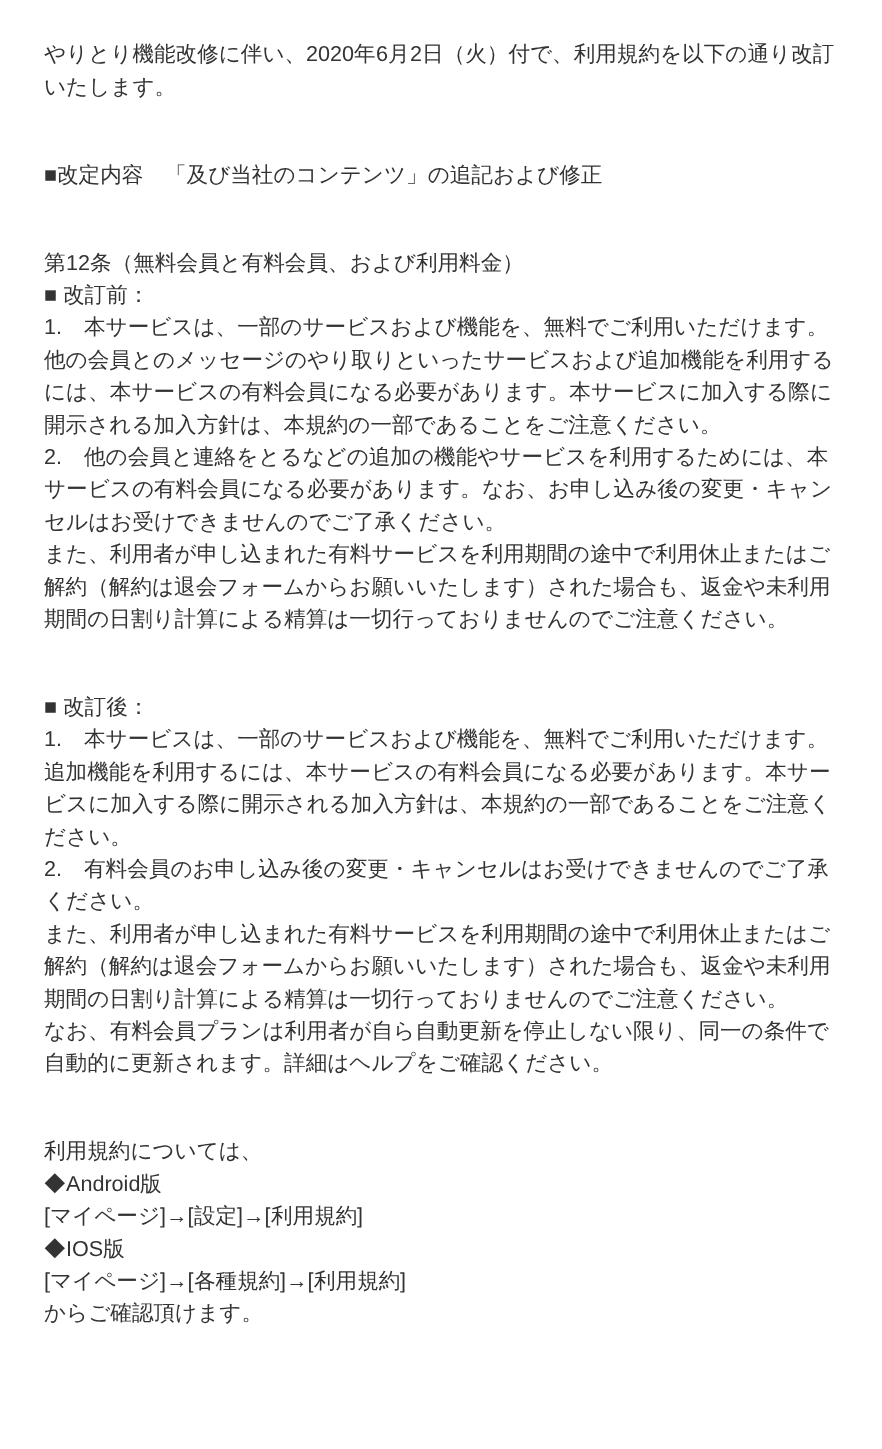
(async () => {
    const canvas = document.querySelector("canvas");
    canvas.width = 882;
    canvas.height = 1449;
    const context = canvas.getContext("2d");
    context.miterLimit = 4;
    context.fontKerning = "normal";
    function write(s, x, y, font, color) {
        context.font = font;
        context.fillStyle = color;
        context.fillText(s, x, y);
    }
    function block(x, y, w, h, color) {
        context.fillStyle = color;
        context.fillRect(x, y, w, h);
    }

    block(0, 0, 882, 1449, "rgb(255, 255, 255)");
    write("やりとり機能改修に伴い、", 44, 61, "500 21.6px WenQuanYi Zen Hei", "rgb(51, 51, 51)");
    write("2020", 306, 61, "21.6px Liberation Sans", "rgb(51, 51, 51)");
    write("年", 354, 61, "500 21.6px WenQuanYi Zen Hei", "rgb(51, 51, 51)");
    write("6", 376, 61, "21.6px Liberation Sans", "rgb(51, 51, 51)");
    write("月", 388, 61, "500 21.6px WenQuanYi Zen Hei", "rgb(51, 51, 51)");
    write("2", 410, 61, "21.6px Liberation Sans", "rgb(51, 51, 51)");
    write("日（火）付で、利用規約を以下の通り改訂", 422, 61, "500 21.6px WenQuanYi Zen Hei", "rgb(51, 51, 51)");
    write("いたします。", 44, 94, "500 21.6px WenQuanYi Zen Hei", "rgb(51, 51, 51)");
    write("■", 44, 182, "21.6px Liberation Sans", "rgb(51, 51, 51)");
    write("改定内容　「及び当社のコンテンツ」の追記および修正", 57, 182, "500 21.6px WenQuanYi Zen Hei", "rgb(51, 51, 51)");
    write("第", 44, 270, "500 21.6px WenQuanYi Zen Hei", "rgb(51, 51, 51)");
    write("12", 66, 270, "21.6px Liberation Sans", "rgb(51, 51, 51)");
    write("条（無料会員と有料会員、および利用料金）", 90, 270, "500 21.6px WenQuanYi Zen Hei", "rgb(51, 51, 51)");
    write("■", 44, 302, "21.6px Liberation Sans", "rgb(51, 51, 51)");
    write("改訂前：", 63, 302, "500 21.6px WenQuanYi Zen Hei", "rgb(51, 51, 51)");
    write("1.", 44, 334, "21.6px Liberation Sans", "rgb(51, 51, 51)");
    write("本サービスは、一部のサービスおよび機能を、無料でご利用いただけます。", 84, 334, "500 21.6px WenQuanYi Zen Hei", "rgb(51, 51, 51)");
    write("他の会員とのメッセージのやり取りといったサービスおよび追加機能を利用する", 44, 367, "500 21.6px WenQuanYi Zen Hei", "rgb(51, 51, 51)");
    write("には、本サービスの有料会員になる必要があります。本サービスに加入する際に", 44, 399, "500 21.6px WenQuanYi Zen Hei", "rgb(51, 51, 51)");
    write("開示される加入方針は、本規約の一部であることをご注意ください。", 44, 432, "500 21.6px WenQuanYi Zen Hei", "rgb(51, 51, 51)");
    write("2.", 44, 464, "21.6px Liberation Sans", "rgb(51, 51, 51)");
    write("他の会員と連絡をとるなどの追加の機能やサービスを利用するためには、本", 84, 464, "500 21.6px WenQuanYi Zen Hei", "rgb(51, 51, 51)");
    write("サービスの有料会員になる必要があります。なお、お申し込み後の変更・キャン", 44, 496, "500 21.6px WenQuanYi Zen Hei", "rgb(51, 51, 51)");
    write("セルはお受けできませんのでご了承ください。", 44, 529, "500 21.6px WenQuanYi Zen Hei", "rgb(51, 51, 51)");
    write("また、利用者が申し込まれた有料サービスを利用期間の途中で利用休止またはご", 44, 561, "500 21.6px WenQuanYi Zen Hei", "rgb(51, 51, 51)");
    write("解約（解約は退会フォームからお願いいたします）された場合も、返金や未利用", 44, 594, "500 21.6px WenQuanYi Zen Hei", "rgb(51, 51, 51)");
    write("期間の日割り計算による精算は一切行っておりませんのでご注意ください。", 44, 626, "500 21.6px WenQuanYi Zen Hei", "rgb(51, 51, 51)");
    write("■", 44, 714, "21.6px Liberation Sans", "rgb(51, 51, 51)");
    write("改訂後：", 63, 714, "500 21.6px WenQuanYi Zen Hei", "rgb(51, 51, 51)");
    write("1.", 44, 746, "21.6px Liberation Sans", "rgb(51, 51, 51)");
    write("本サービスは、一部のサービスおよび機能を、無料でご利用いただけます。", 84, 746, "500 21.6px WenQuanYi Zen Hei", "rgb(51, 51, 51)");
    write("追加機能を利用するには、本サービスの有料会員になる必要があります。本サー", 44, 779, "500 21.6px WenQuanYi Zen Hei", "rgb(51, 51, 51)");
    write("ビスに加入する際に開示される加入方針は、本規約の一部であることをご注意く", 44, 811, "500 21.6px WenQuanYi Zen Hei", "rgb(51, 51, 51)");
    write("ださい。", 44, 844, "500 21.6px WenQuanYi Zen Hei", "rgb(51, 51, 51)");
    write("2.", 44, 876, "21.6px Liberation Sans", "rgb(51, 51, 51)");
    write("有料会員のお申し込み後の変更・キャンセルはお受けできませんのでご了承", 84, 876, "500 21.6px WenQuanYi Zen Hei", "rgb(51, 51, 51)");
    write("ください。", 44, 908, "500 21.6px WenQuanYi Zen Hei", "rgb(51, 51, 51)");
    write("また、利用者が申し込まれた有料サービスを利用期間の途中で利用休止またはご", 44, 941, "500 21.6px WenQuanYi Zen Hei", "rgb(51, 51, 51)");
    write("解約（解約は退会フォームからお願いいたします）された場合も、返金や未利用", 44, 973, "500 21.6px WenQuanYi Zen Hei", "rgb(51, 51, 51)");
    write("期間の日割り計算による精算は一切行っておりませんのでご注意ください。", 44, 1006, "500 21.6px WenQuanYi Zen Hei", "rgb(51, 51, 51)");
    write("なお、有料会員プランは利用者が自ら自動更新を停止しない限り、同一の条件で", 44, 1038, "500 21.6px WenQuanYi Zen Hei", "rgb(51, 51, 51)");
    write("自動的に更新されます。詳細はヘルプをご確認ください。", 44, 1070, "500 21.6px WenQuanYi Zen Hei", "rgb(51, 51, 51)");
    write("利用規約については、", 44, 1158, "500 21.6px WenQuanYi Zen Hei", "rgb(51, 51, 51)");
    write("◆", 44, 1191, "500 21.6px WenQuanYi Zen Hei", "rgb(51, 51, 51)");
    write("Android", 66, 1191, "21.6px Liberation Sans", "rgb(51, 51, 51)");
    write("版", 140, 1191, "500 21.6px WenQuanYi Zen Hei", "rgb(51, 51, 51)");
    write("[", 44, 1223, "21.6px Liberation Sans", "rgb(51, 51, 51)");
    write("マイページ", 50, 1223, "500 21.6px WenQuanYi Zen Hei", "rgb(51, 51, 51)");
    write("]→[", 160, 1223, "21.6px Liberation Sans", "rgb(51, 51, 51)");
    write("設定", 194, 1223, "500 21.6px WenQuanYi Zen Hei", "rgb(51, 51, 51)");
    write("]→[", 237, 1223, "21.6px Liberation Sans", "rgb(51, 51, 51)");
    write("利用規約", 271, 1223, "500 21.6px WenQuanYi Zen Hei", "rgb(51, 51, 51)");
    write("]", 357, 1223, "21.6px Liberation Sans", "rgb(51, 51, 51)");
    write("◆", 44, 1256, "500 21.6px WenQuanYi Zen Hei", "rgb(51, 51, 51)");
    write("IOS", 66, 1256, "21.6px Liberation Sans", "rgb(51, 51, 51)");
    write("版", 103, 1256, "500 21.6px WenQuanYi Zen Hei", "rgb(51, 51, 51)");
    write("[", 44, 1288, "21.6px Liberation Sans", "rgb(51, 51, 51)");
    write("マイページ", 50, 1288, "500 21.6px WenQuanYi Zen Hei", "rgb(51, 51, 51)");
    write("]→[", 160, 1288, "21.6px Liberation Sans", "rgb(51, 51, 51)");
    write("各種規約", 194, 1288, "500 21.6px WenQuanYi Zen Hei", "rgb(51, 51, 51)");
    write("]→[", 280, 1288, "21.6px Liberation Sans", "rgb(51, 51, 51)");
    write("利用規約", 314, 1288, "500 21.6px WenQuanYi Zen Hei", "rgb(51, 51, 51)");
    write("]", 400, 1288, "21.6px Liberation Sans", "rgb(51, 51, 51)");
    write("からご確認頂けます。", 44, 1320, "500 21.6px WenQuanYi Zen Hei", "rgb(51, 51, 51)");
})();
